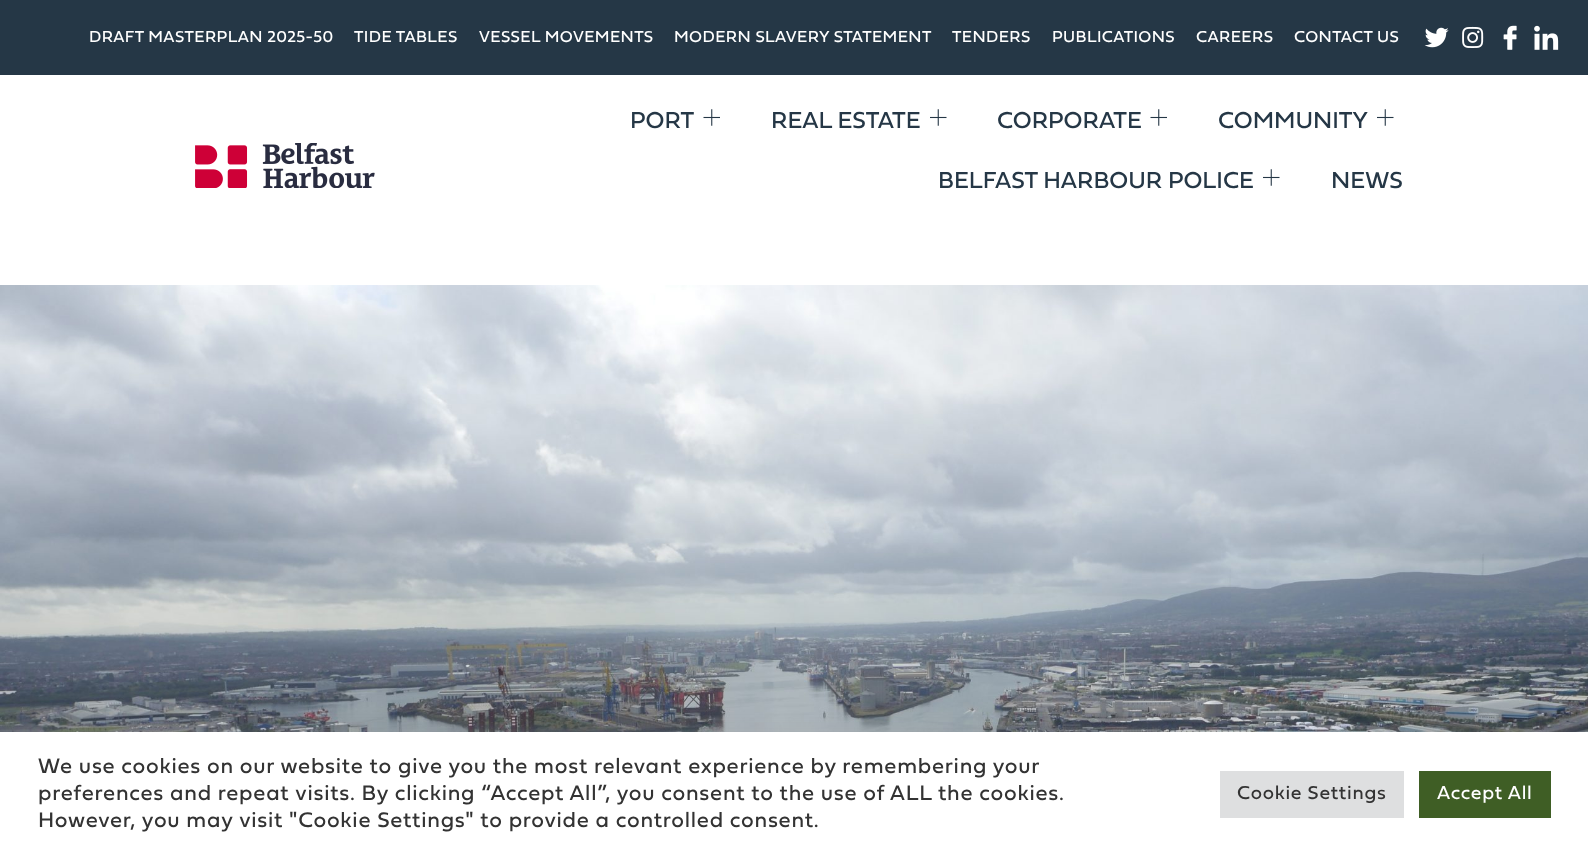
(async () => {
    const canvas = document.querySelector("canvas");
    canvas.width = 1588;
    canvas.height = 854;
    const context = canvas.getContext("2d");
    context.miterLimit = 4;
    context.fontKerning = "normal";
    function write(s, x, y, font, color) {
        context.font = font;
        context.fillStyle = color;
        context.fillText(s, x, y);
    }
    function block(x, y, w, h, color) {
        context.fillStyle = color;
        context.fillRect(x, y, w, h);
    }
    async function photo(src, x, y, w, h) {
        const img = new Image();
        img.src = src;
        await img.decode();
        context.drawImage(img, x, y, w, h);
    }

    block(0, 0, 1588, 854, "rgb(255, 255, 255)");
    block(0, 0, 1588, 75, "rgb(37, 55, 70)");
    context.letterSpacing = "0.4px";
    write("DRAFT MASTERPLAN 2025-50", 89, 42, "16.5px 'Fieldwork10'", "rgb(255, 255, 255)");
    write("TIDE TABLES", 354, 42, "16.5px 'Fieldwork10'", "rgb(255, 255, 255)");
    write("VESSEL MOVEMENTS", 479, 42, "16.5px 'Fieldwork10'", "rgb(255, 255, 255)");
    write("MODERN SLAVERY STATEMENT", 674, 42, "16.5px 'Fieldwork10'", "rgb(255, 255, 255)");
    write("TENDERS", 952, 42, "16.5px 'Fieldwork10'", "rgb(255, 255, 255)");
    write("PUBLICATIONS", 1052, 42, "16.5px 'Fieldwork10'", "rgb(255, 255, 255)");
    write("CAREERS", 1196, 42, "16.5px 'Fieldwork10'", "rgb(255, 255, 255)");
    write("CONTACT US", 1294, 42, "16.5px 'Fieldwork10'", "rgb(255, 255, 255)");
    await photo("media/1.png", 1424, 27, 25, 21);
    await photo("media/2.png", 1462, 26, 22, 22);
    await photo("media/3.png", 1503, 25, 14, 25);
    await photo("media/4.png", 1534, 25, 25, 25);
    await photo("media/5.png", 195, 143, 180, 45);
    context.letterSpacing = "0px";
    write("PORT", 630, 128, "24px 'Fieldwork10'", "rgb(37, 55, 70)");
    await photo("media/6.png", 703, 109, 17, 17);
    write("REAL ESTATE", 771, 128, "24px 'Fieldwork10'", "rgb(37, 55, 70)");
    await photo("media/7.png", 930, 109, 17, 17);
    write("CORPORATE", 997, 128, "24px 'Fieldwork10'", "rgb(37, 55, 70)");
    await photo("media/6.png", 1150, 109, 17, 17);
    write("COMMUNITY", 1218, 128, "24px 'Fieldwork10'", "rgb(37, 55, 70)");
    await photo("media/7.png", 1377, 109, 17, 17);
    write("BELFAST HARBOUR POLICE", 938, 188, "24px 'Fieldwork10'", "rgb(37, 55, 70)");
    await photo("media/7.png", 1263, 169, 17, 17);
    write("NEWS", 1331, 188, "24px 'Fieldwork10'", "rgb(37, 55, 70)");
    await photo("media/8.png", 0, 285, 1588, 447);
    context.fillStyle = "rgba(172, 171, 171, 0.3)";
    context.filter = "blur(7.5px)";
    context.beginPath();
    context.rect(0, 731, 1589, 123);
    context.fill();
    context.filter = "none";
    block(0, 732, 1588, 122, "rgb(255, 255, 255)");
    context.letterSpacing = "0.75px";
    write("We use cookies on our website to give you the most relevant experience by remembering your", 38, 773, "22px 'Fieldwork10'", "rgb(51, 51, 51)");
    write("preferences and repeat visits. By clicking “Accept All”, you consent to the use of ALL the cookies.", 38, 800, "22px 'Fieldwork10'", "rgb(51, 51, 51)");
    write("However, you may visit \"Cookie Settings\" to provide a controlled consent.", 38, 827, "22px 'Fieldwork10'", "rgb(51, 51, 51)");
    block(1220, 771, 184, 47, "rgb(222, 223, 224)");
    write("Cookie Settings", 1237, 799, "19.5px 'Fieldwork10'", "rgb(51, 51, 51)");
    block(1419, 771, 132, 47, "rgb(63, 94, 37)");
    write("Accept All", 1437, 799, "19.5px 'Fieldwork10'", "rgb(255, 255, 255)");
})();
